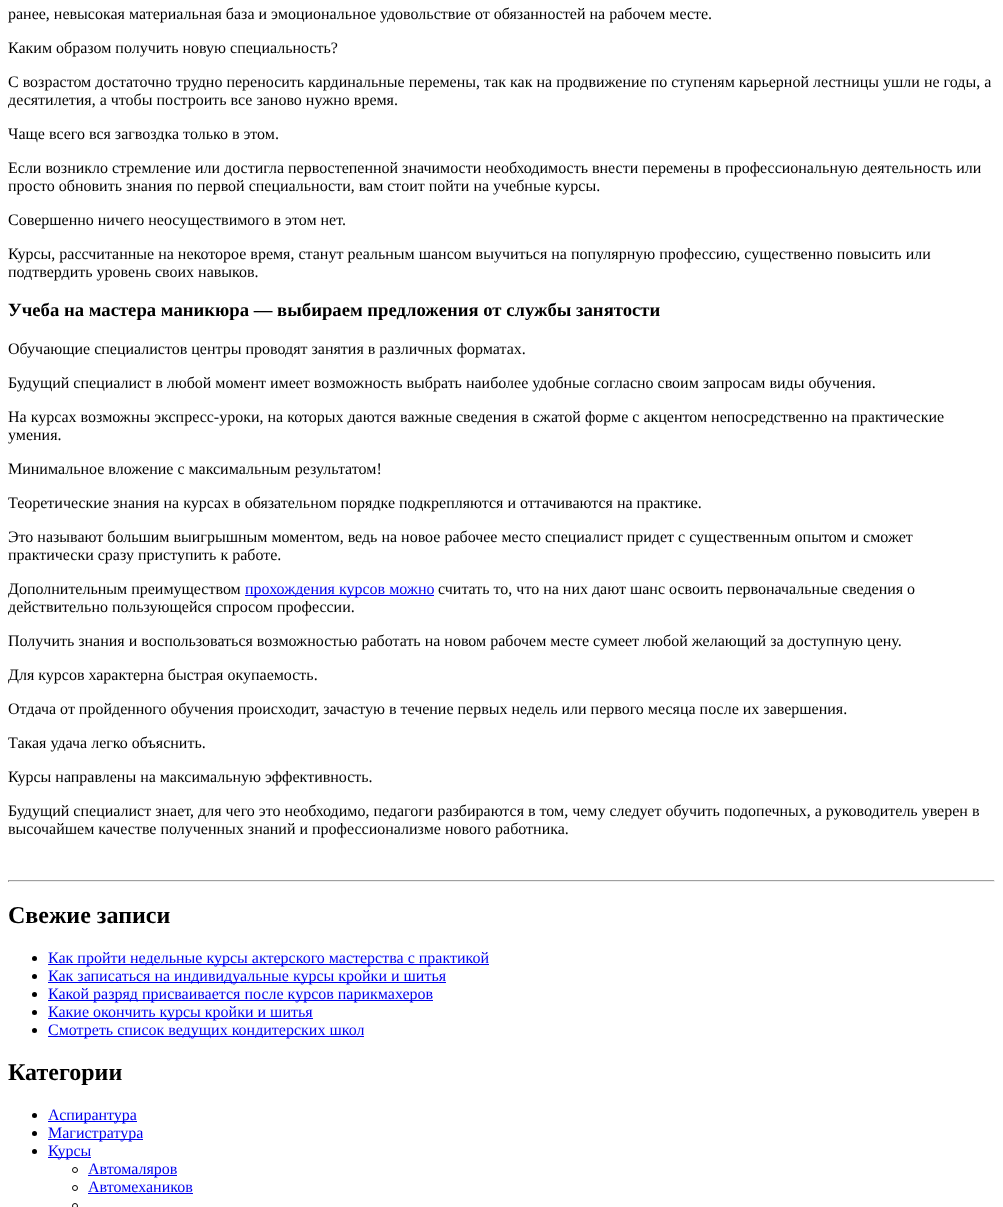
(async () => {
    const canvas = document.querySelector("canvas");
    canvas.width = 1003;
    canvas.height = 1207;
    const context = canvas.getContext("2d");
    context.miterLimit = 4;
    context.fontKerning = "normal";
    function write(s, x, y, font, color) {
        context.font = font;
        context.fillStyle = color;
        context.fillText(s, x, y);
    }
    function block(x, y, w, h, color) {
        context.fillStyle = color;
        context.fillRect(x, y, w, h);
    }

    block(0, 0, 1003, 1207, "rgb(255, 255, 255)");
    write("ранее, невысокая материальная база и эмоциональное удовольствие от обязанностей на рабочем месте.", 8, 19, "16px Liberation Serif", "rgb(0, 0, 0)");
    write("Каким образом получить новую специальность?", 8, 53, "16px Liberation Serif", "rgb(0, 0, 0)");
    write("С возрастом достаточно трудно переносить кардинальные перемены, так как на продвижение по ступеням карьерной лестницы ушли не годы, а", 8, 87, "16px Liberation Serif", "rgb(0, 0, 0)");
    write("десятилетия, а чтобы построить все заново нужно время.", 8, 105, "16px Liberation Serif", "rgb(0, 0, 0)");
    write("Чаще всего вся загвоздка только в этом.", 8, 139, "16px Liberation Serif", "rgb(0, 0, 0)");
    write("Если возникло стремление или достигла первостепенной значимости необходимость внести перемены в профессиональную деятельность или", 8, 173, "16px Liberation Serif", "rgb(0, 0, 0)");
    write("просто обновить знания по первой специальности, вам стоит пойти на учебные курсы.", 8, 191, "16px Liberation Serif", "rgb(0, 0, 0)");
    write("Совершенно ничего неосуществимого в этом нет.", 8, 225, "16px Liberation Serif", "rgb(0, 0, 0)");
    write("Курсы, рассчитанные на некоторое время, станут реальным шансом выучиться на популярную профессию, существенно повысить или", 8, 259, "16px Liberation Serif", "rgb(0, 0, 0)");
    write("подтвердить уровень своих навыков.", 8, 277, "16px Liberation Serif", "rgb(0, 0, 0)");
    write("Учеба на мастера маникюра — выбираем предложения от службы занятости", 8, 316, "bold 18.7px Liberation Serif", "rgb(0, 0, 0)");
    write("Обучающие специалистов центры проводят занятия в различных форматах.", 8, 354, "16px Liberation Serif", "rgb(0, 0, 0)");
    write("Будущий специалист в любой момент имеет возможность выбрать наиболее удобные согласно своим запросам виды обучения.", 8, 388, "16px Liberation Serif", "rgb(0, 0, 0)");
    write("На курсах возможны экспресс-уроки, на которых даются важные сведения в сжатой форме с акцентом непосредственно на практические", 8, 422, "16px Liberation Serif", "rgb(0, 0, 0)");
    write("умения.", 8, 440, "16px Liberation Serif", "rgb(0, 0, 0)");
    write("Минимальное вложение с максимальным результатом!", 8, 474, "16px Liberation Serif", "rgb(0, 0, 0)");
    write("Теоретические знания на курсах в обязательном порядке подкрепляются и оттачиваются на практике.", 8, 508, "16px Liberation Serif", "rgb(0, 0, 0)");
    write("Это называют большим выигрышным моментом, ведь на новое рабочее место специалист придет с существенным опытом и сможет", 8, 542, "16px Liberation Serif", "rgb(0, 0, 0)");
    write("практически сразу приступить к работе.", 8, 560, "16px Liberation Serif", "rgb(0, 0, 0)");
    write("Дополнительным преимуществом", 8, 594, "16px Liberation Serif", "rgb(0, 0, 0)");
    block(245, 595, 189, 1, "rgb(0, 0, 238)");
    write("прохождения курсов можно", 245, 594, "16px Liberation Serif", "rgb(0, 0, 238)");
    write("считать то, что на них дают шанс освоить первоначальные сведения о", 438, 594, "16px Liberation Serif", "rgb(0, 0, 0)");
    write("действительно пользующейся спросом профессии.", 8, 612, "16px Liberation Serif", "rgb(0, 0, 0)");
    write("Получить знания и воспользоваться возможностью работать на новом рабочем месте сумеет любой желающий за доступную цену.", 8, 646, "16px Liberation Serif", "rgb(0, 0, 0)");
    write("Для курсов характерна быстрая окупаемость.", 8, 680, "16px Liberation Serif", "rgb(0, 0, 0)");
    write("Отдача от пройденного обучения происходит, зачастую в течение первых недель или первого месяца после их завершения.", 8, 714, "16px Liberation Serif", "rgb(0, 0, 0)");
    write("Такая удача легко объяснить.", 8, 748, "16px Liberation Serif", "rgb(0, 0, 0)");
    write("Курсы направлены на максимальную эффективность.", 8, 782, "16px Liberation Serif", "rgb(0, 0, 0)");
    write("Будущий специалист знает, для чего это необходимо, педагоги разбираются в том, чему следует обучить подопечных, а руководитель уверен в", 8, 816, "16px Liberation Serif", "rgb(0, 0, 0)");
    write("высочайшем качестве полученных знаний и профессионализме нового работника.", 8, 834, "16px Liberation Serif", "rgb(0, 0, 0)");
    block(8, 880, 987, 1, "rgb(159, 159, 159)");
    block(994, 880, 1, 2, "rgb(238, 238, 238)");
    block(8, 881, 987, 1, "rgb(238, 238, 238)");
    block(8, 880, 1, 2, "rgb(159, 159, 159)");
    write("Свежие записи", 8, 923, "bold 24px Liberation Serif", "rgb(0, 0, 0)");
    context.beginPath();
    context.arc(34.5, 958.5, 2.5, 0, Math.PI * 2);
    context.fill();
    block(48, 964, 441, 1, "rgb(0, 0, 238)");
    write("Как пройти недельные курсы актерского мастерства с практикой", 48, 963, "16px Liberation Serif", "rgb(0, 0, 238)");
    context.fillStyle = "rgb(0, 0, 0)";
    context.beginPath();
    context.arc(34.5, 976.5, 2.5, 0, Math.PI * 2);
    context.fill();
    block(48, 982, 398, 1, "rgb(0, 0, 238)");
    write("Как записаться на индивидуальные курсы кройки и шитья", 48, 981, "16px Liberation Serif", "rgb(0, 0, 238)");
    context.fillStyle = "rgb(0, 0, 0)";
    context.beginPath();
    context.arc(34.5, 994.5, 2.5, 0, Math.PI * 2);
    context.fill();
    block(48, 1000, 385, 1, "rgb(0, 0, 238)");
    write("Какой разряд присваивается после курсов парикмахеров", 48, 999, "16px Liberation Serif", "rgb(0, 0, 238)");
    context.fillStyle = "rgb(0, 0, 0)";
    context.beginPath();
    context.arc(34.5, 1012.5, 2.5, 0, Math.PI * 2);
    context.fill();
    block(48, 1018, 265, 1, "rgb(0, 0, 238)");
    write("Какие окончить курсы кройки и шитья", 48, 1017, "16px Liberation Serif", "rgb(0, 0, 238)");
    context.fillStyle = "rgb(0, 0, 0)";
    context.beginPath();
    context.arc(34.5, 1030.5, 2.5, 0, Math.PI * 2);
    context.fill();
    block(48, 1036, 316, 1, "rgb(0, 0, 238)");
    write("Смотреть список ведущих кондитерских школ", 48, 1035, "16px Liberation Serif", "rgb(0, 0, 238)");
    write("Категории", 8, 1080, "bold 24px Liberation Serif", "rgb(0, 0, 0)");
    context.beginPath();
    context.arc(34.5, 1115.5, 2.5, 0, Math.PI * 2);
    context.fill();
    block(48, 1121, 89, 1, "rgb(0, 0, 238)");
    write("Аспирантура", 48, 1120, "16px Liberation Serif", "rgb(0, 0, 238)");
    context.fillStyle = "rgb(0, 0, 0)";
    context.beginPath();
    context.arc(34.5, 1133.5, 2.5, 0, Math.PI * 2);
    context.fill();
    block(48, 1139, 95, 1, "rgb(0, 0, 238)");
    write("Магистратура", 48, 1138, "16px Liberation Serif", "rgb(0, 0, 238)");
    context.fillStyle = "rgb(0, 0, 0)";
    context.beginPath();
    context.arc(34.5, 1151.5, 2.5, 0, Math.PI * 2);
    context.fill();
    block(48, 1157, 43, 1, "rgb(0, 0, 238)");
    write("Курсы", 48, 1156, "16px Liberation Serif", "rgb(0, 0, 238)");
    context.beginPath();
    context.arc(75, 1170, 2.5, 0, Math.PI * 2);
    context.strokeStyle = "rgb(0, 0, 0)";
    context.stroke();
    block(88, 1175, 89, 1, "rgb(0, 0, 238)");
    write("Автомаляров", 88, 1174, "16px Liberation Serif", "rgb(0, 0, 238)");
    context.beginPath();
    context.arc(75, 1188, 2.5, 0, Math.PI * 2);
    context.stroke();
    write("Автомехаников", 88, 1192, "16px Liberation Serif", "rgb(0, 0, 238)");
    block(88, 1193, 105, 1, "rgb(0, 0, 238)");
    context.beginPath();
    context.arc(75, 1206, 2.5, 0, Math.PI * 2);
    context.stroke();
})();
